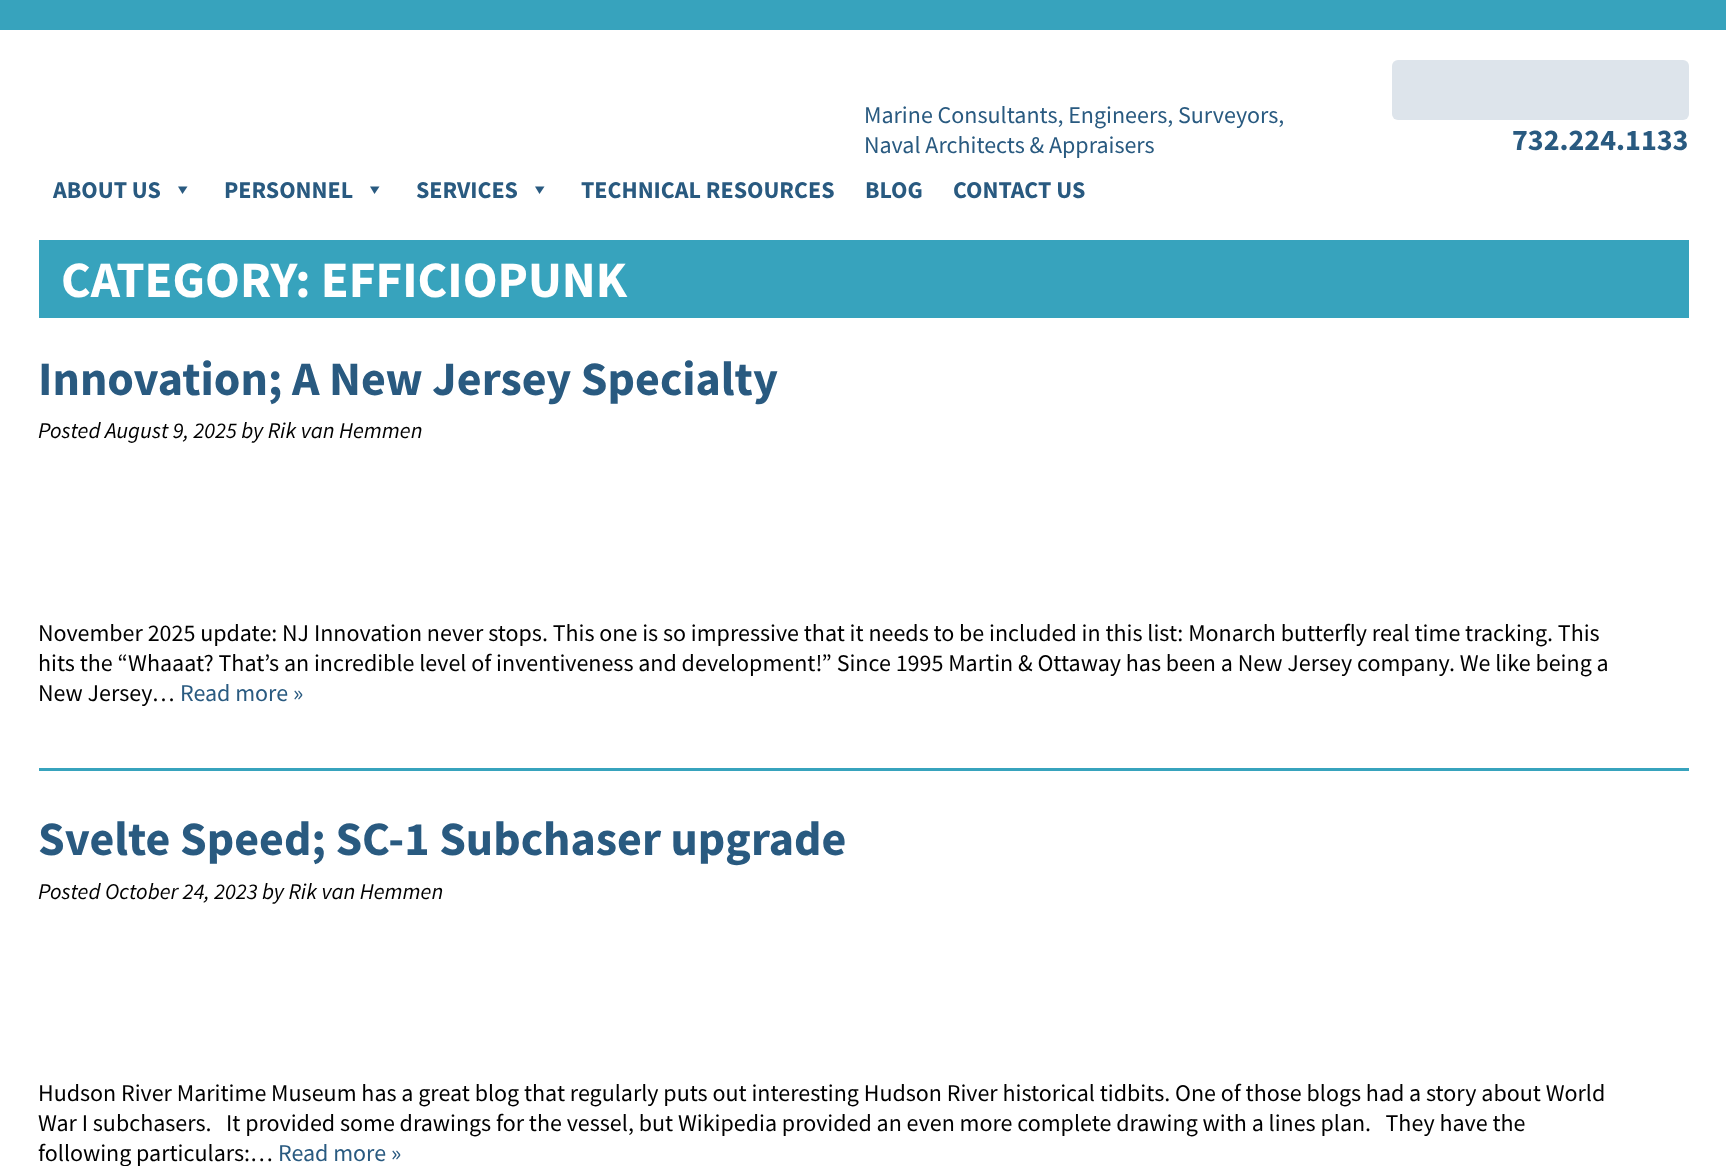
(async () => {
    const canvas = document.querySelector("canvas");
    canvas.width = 1726;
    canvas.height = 1166;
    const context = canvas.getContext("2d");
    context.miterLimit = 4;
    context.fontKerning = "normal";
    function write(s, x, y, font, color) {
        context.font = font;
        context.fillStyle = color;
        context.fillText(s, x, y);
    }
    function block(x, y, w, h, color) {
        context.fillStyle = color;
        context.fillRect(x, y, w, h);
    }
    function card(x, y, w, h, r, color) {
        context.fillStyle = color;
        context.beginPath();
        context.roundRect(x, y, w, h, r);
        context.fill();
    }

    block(0, 0, 1726, 1166, "rgb(255, 255, 255)");
    block(0, 0, 1726, 30, "rgb(55, 163, 189)");
    write("Marine Consultants, Engineers, Surveyors,", 864, 123, "24px Source Sans Pro", "rgb(41, 90, 128)");
    write("Naval Architects & Appraisers", 864, 153, "24px Source Sans Pro", "rgb(41, 90, 128)");
    card(1392, 60, 297, 60, 6, "rgb(221, 228, 235)");
    write("732.224.1133", 1512, 150, "bold 30px Source Sans Pro", "rgb(41, 90, 128)");
    write("ABOUT US", 53, 198, "bold 24px Source Sans Pro", "rgb(41, 90, 128)");
    context.beginPath();
    context.moveTo(187.5, 186.5);
    context.lineTo(182.5, 194);
    context.lineTo(178, 186.5);
    context.closePath();
    context.fill();
    write("PERSONNEL", 224, 198, "bold 24px Source Sans Pro", "rgb(41, 90, 128)");
    context.beginPath();
    context.moveTo(379.5, 186.5);
    context.lineTo(374.5, 194);
    context.lineTo(370, 186.5);
    context.closePath();
    context.fill();
    write("SERVICES", 416, 198, "bold 24px Source Sans Pro", "rgb(41, 90, 128)");
    context.beginPath();
    context.moveTo(544.5, 186.5);
    context.lineTo(539.5, 194);
    context.lineTo(535, 186.5);
    context.closePath();
    context.fill();
    write("TECHNICAL RESOURCES", 581, 198, "bold 24px Source Sans Pro", "rgb(41, 90, 128)");
    write("BLOG", 865, 198, "bold 24px Source Sans Pro", "rgb(41, 90, 128)");
    write("CONTACT US", 953, 198, "bold 24px Source Sans Pro", "rgb(41, 90, 128)");
    block(39, 240, 1650, 78, "rgb(55, 163, 189)");
    write("CATEGORY: EFFICIOPUNK", 61, 297, "bold 51px Source Sans Pro", "rgb(255, 255, 255)");
    block(39, 768, 1650, 3, "rgb(55, 163, 189)");
    write("Innovation; A New Jersey Specialty", 38, 395, "bold 48px Source Sans Pro", "rgb(41, 90, 128)");
    write("Posted August 9, 2025 by Rik van Hemmen", 38, 438, "italic 22.5px Source Sans Pro", "rgb(0, 0, 0)");
    write("November 2025 update: NJ Innovation never stops. This one is so impressive that it needs to be included in this list: Monarch butterfly real time tracking. This", 38, 641, "24px Source Sans Pro", "rgb(0, 0, 0)");
    write("hits the “Whaaat? That’s an incredible level of inventiveness and development!” Since 1995 Martin & Ottaway has been a New Jersey company. We like being a", 38, 671, "24px Source Sans Pro", "rgb(0, 0, 0)");
    write("New Jersey…", 38, 701, "24px Source Sans Pro", "rgb(0, 0, 0)");
    write("Read more »", 180, 701, "24px Source Sans Pro", "rgb(41, 90, 128)");
    write("Svelte Speed; SC-1 Subchaser upgrade", 38, 855, "bold 48px Source Sans Pro", "rgb(41, 90, 128)");
    write("Posted October 24, 2023 by Rik van Hemmen", 38, 899, "italic 22.5px Source Sans Pro", "rgb(0, 0, 0)");
    write("Hudson River Maritime Museum has a great blog that regularly puts out interesting Hudson River historical tidbits. One of those blogs had a story about World", 38, 1101, "24px Source Sans Pro", "rgb(0, 0, 0)");
    write("War I subchasers.   It provided some drawings for the vessel, but Wikipedia provided an even more complete drawing with a lines plan.   They have the", 38, 1131, "24px Source Sans Pro", "rgb(0, 0, 0)");
    write("following particulars:…", 38, 1161, "24px Source Sans Pro", "rgb(0, 0, 0)");
    write("Read more »", 278, 1161, "24px Source Sans Pro", "rgb(41, 90, 128)");
})();
